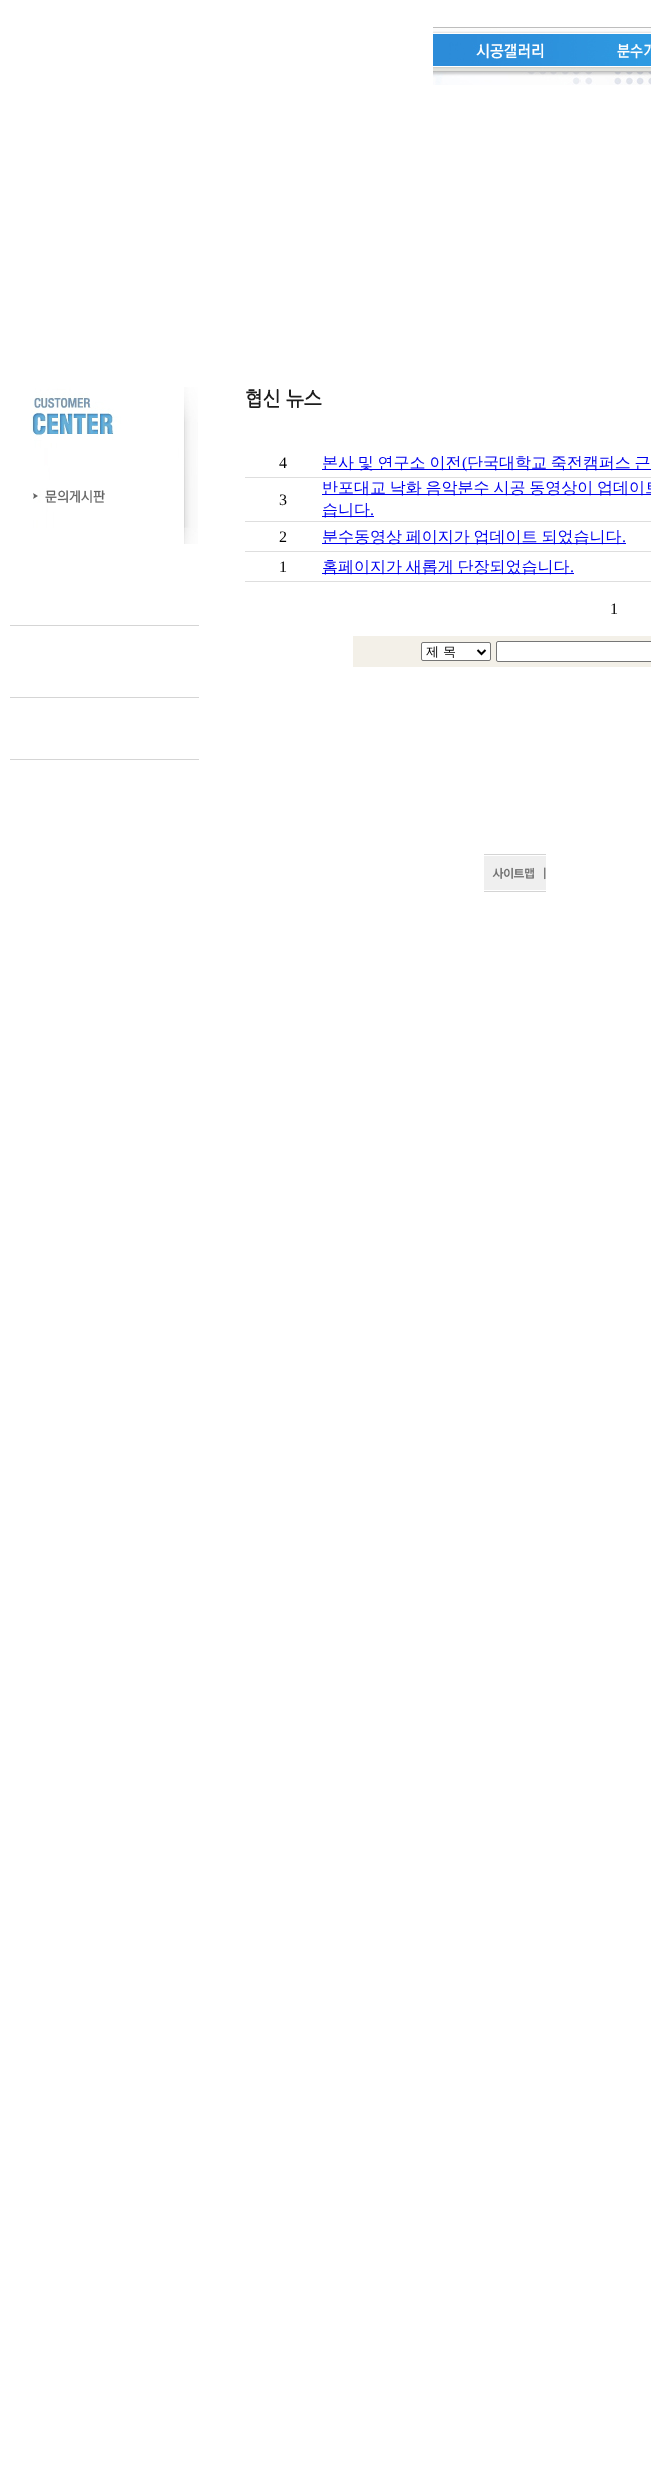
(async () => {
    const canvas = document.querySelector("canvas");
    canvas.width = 651;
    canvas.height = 2487;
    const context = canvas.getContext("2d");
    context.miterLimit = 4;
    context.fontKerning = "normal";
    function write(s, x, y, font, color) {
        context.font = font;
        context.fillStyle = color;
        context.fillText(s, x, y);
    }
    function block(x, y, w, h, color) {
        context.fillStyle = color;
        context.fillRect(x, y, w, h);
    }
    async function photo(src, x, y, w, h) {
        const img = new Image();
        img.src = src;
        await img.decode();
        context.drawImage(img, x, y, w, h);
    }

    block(0, 0, 651, 2487, "rgb(255, 255, 255)");
    await photo("media/1.png", 433, 27, 147, 58);
    await photo("media/2.png", 580, 27, 71, 58);
    await photo("media/3.png", 30, 387, 168, 157);
    await photo("media/4.png", 33, 490, 72, 13);
    block(10, 625, 189, 1, "rgb(213, 213, 213)");
    block(10, 697, 189, 1, "rgb(213, 213, 213)");
    block(10, 759, 189, 1, "rgb(213, 213, 213)");
    await photo("media/5.png", 246, 389, 76, 19);
    write("4", 279, 468, "16px Liberation Serif", "rgb(0, 0, 0)");
    block(322, 469, 329, 1, "rgb(0, 0, 238)");
    context.wordSpacing = "-1px";
    write("본사 및 연구소 이전", 322, 468, "500 16px WenQuanYi Zen Hei", "rgb(0, 0, 238)");
    context.wordSpacing = "0px";
    write("(", 462, 468, "16px Liberation Serif", "rgb(0, 0, 238)");
    context.wordSpacing = "-1px";
    write("단국대학교 죽전캠퍼스 근", 467, 468, "500 16px WenQuanYi Zen Hei", "rgb(0, 0, 238)");
    block(245, 477, 406, 1, "rgb(222, 222, 222)");
    context.wordSpacing = "0px";
    write("3", 279, 505, "16px Liberation Serif", "rgb(0, 0, 0)");
    block(322, 494, 329, 1, "rgb(0, 0, 238)");
    context.wordSpacing = "-1px";
    write("반포대교 낙화 음악분수 시공 동영상이 업데이트", 322, 493, "500 16px WenQuanYi Zen Hei", "rgb(0, 0, 238)");
    block(322, 516, 52, 1, "rgb(0, 0, 238)");
    context.wordSpacing = "0px";
    write("습니다", 322, 515, "500 16px WenQuanYi Zen Hei", "rgb(0, 0, 238)");
    write(".", 370, 515, "16px Liberation Serif", "rgb(0, 0, 238)");
    block(245, 521, 406, 1, "rgb(222, 222, 222)");
    write("2", 279, 542, "16px Liberation Serif", "rgb(0, 0, 0)");
    block(322, 543, 304, 1, "rgb(0, 0, 238)");
    context.wordSpacing = "-1px";
    write("분수동영상 페이지가 업데이트 되었습니다", 322, 542, "500 16px WenQuanYi Zen Hei", "rgb(0, 0, 238)");
    context.wordSpacing = "0px";
    write(".", 622, 542, "16px Liberation Serif", "rgb(0, 0, 238)");
    block(245, 551, 406, 1, "rgb(222, 222, 222)");
    write("1", 279, 572, "16px Liberation Serif", "rgb(0, 0, 0)");
    block(322, 573, 252, 1, "rgb(0, 0, 238)");
    context.wordSpacing = "-1px";
    write("홈페이지가 새롭게 단장되었습니다", 322, 572, "500 16px WenQuanYi Zen Hei", "rgb(0, 0, 238)");
    context.wordSpacing = "0px";
    write(".", 570, 572, "16px Liberation Serif", "rgb(0, 0, 238)");
    block(245, 581, 406, 1, "rgb(222, 222, 222)");
    write("1", 610, 614, "16px Liberation Serif", "rgb(0, 0, 0)");
    block(353, 636, 298, 31, "rgb(243, 240, 232)");
    context.fillStyle = "rgb(255, 255, 255)";
    context.beginPath();
    context.roundRect(421.5, 642.5, 69, 18, 1.5);
    context.fill();
    context.strokeStyle = "rgb(118, 118, 118)";
    context.stroke();
    context.beginPath();
    context.moveTo(477.5, 650);
    context.lineTo(481.5, 654);
    context.lineTo(485.5, 650);
    context.strokeStyle = "rgb(0, 0, 0)";
    context.lineWidth = 2;
    context.stroke();
    write("제 목", 426, 656, "500 13px WenQuanYi Zen Hei", "rgb(0, 0, 0)");
    context.fillStyle = "rgb(255, 255, 255)";
    context.beginPath();
    context.roundRect(496.5, 641.5, 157, 20, 1.5);
    context.fill();
    context.strokeStyle = "rgb(118, 118, 118)";
    context.lineWidth = 1;
    context.stroke();
    await photo("media/6.png", 484, 854, 62, 38);
})();
